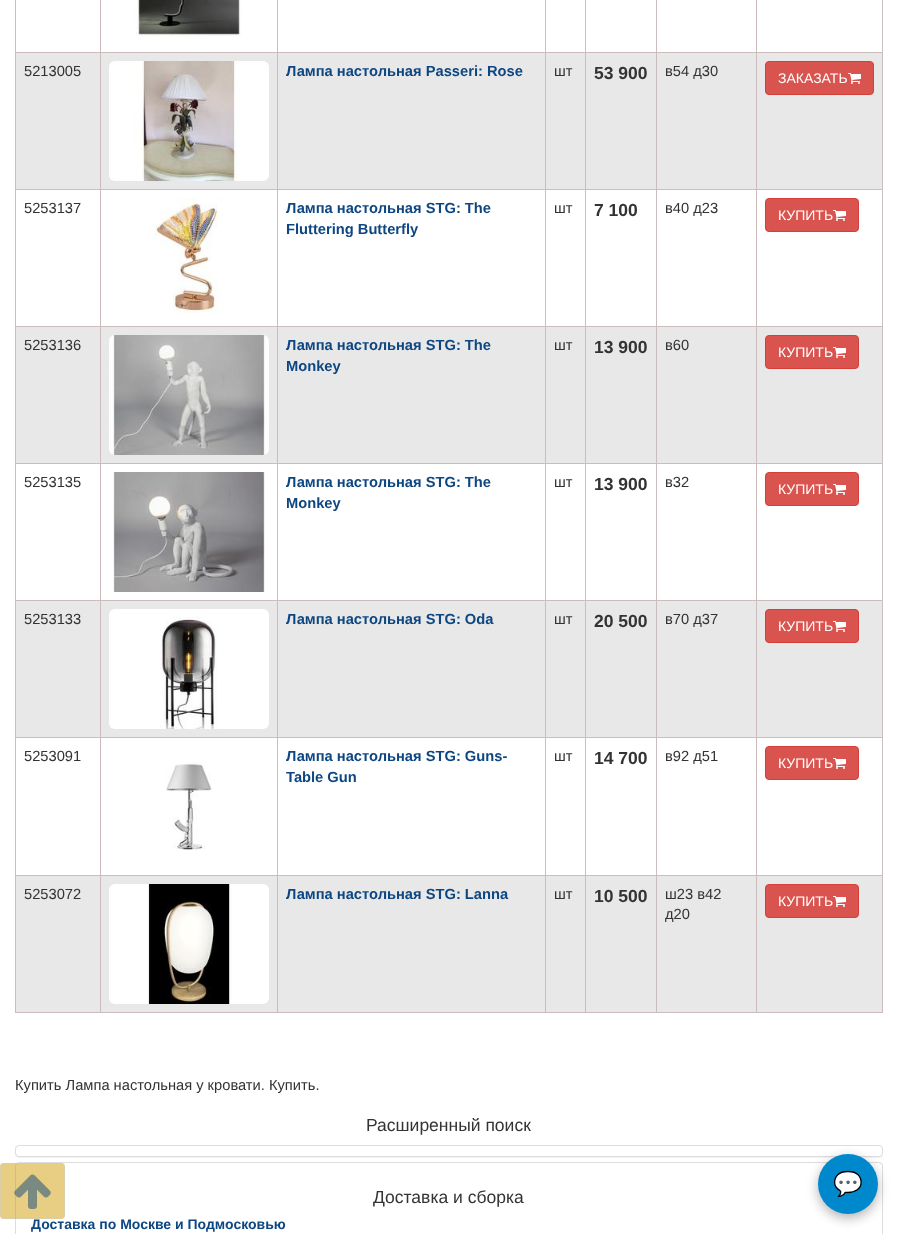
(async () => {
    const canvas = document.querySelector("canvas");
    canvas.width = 898;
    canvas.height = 1234;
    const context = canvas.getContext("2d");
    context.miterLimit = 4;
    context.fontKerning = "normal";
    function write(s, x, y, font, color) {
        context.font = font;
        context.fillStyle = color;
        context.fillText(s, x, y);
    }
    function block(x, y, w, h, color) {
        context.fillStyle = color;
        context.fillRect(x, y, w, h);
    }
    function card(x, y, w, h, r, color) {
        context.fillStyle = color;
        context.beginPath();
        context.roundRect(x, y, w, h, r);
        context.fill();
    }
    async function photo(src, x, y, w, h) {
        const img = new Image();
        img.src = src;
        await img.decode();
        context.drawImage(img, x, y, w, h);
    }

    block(0, 0, 898, 1234, "rgb(255, 255, 255)");
    block(16, 53, 866, 136, "rgb(232, 232, 232)");
    block(16, 327, 866, 136, "rgb(232, 232, 232)");
    block(16, 601, 866, 136, "rgb(232, 232, 232)");
    block(16, 876, 866, 136, "rgb(232, 232, 232)");
    block(882, 0, 1, 1013, "rgb(203, 189, 189)");
    block(756, 1012, 127, 1, "rgb(203, 189, 189)");
    block(756, 875, 1, 138, "rgb(203, 189, 189)");
    block(756, 875, 127, 1, "rgb(203, 189, 189)");
    block(756, 737, 1, 139, "rgb(203, 189, 189)");
    block(756, 737, 127, 1, "rgb(203, 189, 189)");
    block(756, 600, 1, 138, "rgb(203, 189, 189)");
    block(756, 600, 127, 1, "rgb(203, 189, 189)");
    block(756, 463, 1, 138, "rgb(203, 189, 189)");
    block(756, 463, 127, 1, "rgb(203, 189, 189)");
    block(756, 326, 1, 138, "rgb(203, 189, 189)");
    block(756, 326, 127, 1, "rgb(203, 189, 189)");
    block(756, 189, 1, 138, "rgb(203, 189, 189)");
    block(756, 189, 127, 1, "rgb(203, 189, 189)");
    block(756, 52, 1, 138, "rgb(203, 189, 189)");
    block(756, 52, 127, 1, "rgb(203, 189, 189)");
    block(756, 0, 1, 53, "rgb(203, 189, 189)");
    block(656, 1012, 101, 1, "rgb(203, 189, 189)");
    block(656, 875, 1, 138, "rgb(203, 189, 189)");
    block(656, 875, 101, 1, "rgb(203, 189, 189)");
    block(656, 737, 1, 139, "rgb(203, 189, 189)");
    block(656, 737, 101, 1, "rgb(203, 189, 189)");
    block(656, 600, 1, 138, "rgb(203, 189, 189)");
    block(656, 600, 101, 1, "rgb(203, 189, 189)");
    block(656, 463, 1, 138, "rgb(203, 189, 189)");
    block(656, 463, 101, 1, "rgb(203, 189, 189)");
    block(656, 326, 1, 138, "rgb(203, 189, 189)");
    block(656, 326, 101, 1, "rgb(203, 189, 189)");
    block(656, 189, 1, 138, "rgb(203, 189, 189)");
    block(656, 189, 101, 1, "rgb(203, 189, 189)");
    block(656, 52, 1, 138, "rgb(203, 189, 189)");
    block(656, 52, 101, 1, "rgb(203, 189, 189)");
    block(656, 0, 1, 53, "rgb(203, 189, 189)");
    block(585, 1012, 72, 1, "rgb(203, 189, 189)");
    block(585, 875, 1, 138, "rgb(203, 189, 189)");
    block(585, 875, 72, 1, "rgb(203, 189, 189)");
    block(585, 737, 1, 139, "rgb(203, 189, 189)");
    block(585, 737, 72, 1, "rgb(203, 189, 189)");
    block(585, 600, 1, 138, "rgb(203, 189, 189)");
    block(585, 600, 72, 1, "rgb(203, 189, 189)");
    block(585, 463, 1, 138, "rgb(203, 189, 189)");
    block(585, 463, 72, 1, "rgb(203, 189, 189)");
    block(585, 326, 1, 138, "rgb(203, 189, 189)");
    block(585, 326, 72, 1, "rgb(203, 189, 189)");
    block(585, 189, 1, 138, "rgb(203, 189, 189)");
    block(585, 189, 72, 1, "rgb(203, 189, 189)");
    block(585, 52, 1, 138, "rgb(203, 189, 189)");
    block(585, 52, 72, 1, "rgb(203, 189, 189)");
    block(585, 0, 1, 53, "rgb(203, 189, 189)");
    block(545, 1012, 41, 1, "rgb(203, 189, 189)");
    block(545, 875, 1, 138, "rgb(203, 189, 189)");
    block(545, 875, 41, 1, "rgb(203, 189, 189)");
    block(545, 737, 1, 139, "rgb(203, 189, 189)");
    block(545, 737, 41, 1, "rgb(203, 189, 189)");
    block(545, 600, 1, 138, "rgb(203, 189, 189)");
    block(545, 600, 41, 1, "rgb(203, 189, 189)");
    block(545, 463, 1, 138, "rgb(203, 189, 189)");
    block(545, 463, 41, 1, "rgb(203, 189, 189)");
    block(545, 326, 1, 138, "rgb(203, 189, 189)");
    block(545, 326, 41, 1, "rgb(203, 189, 189)");
    block(545, 189, 1, 138, "rgb(203, 189, 189)");
    block(545, 189, 41, 1, "rgb(203, 189, 189)");
    block(545, 52, 1, 138, "rgb(203, 189, 189)");
    block(545, 52, 41, 1, "rgb(203, 189, 189)");
    block(545, 0, 1, 53, "rgb(203, 189, 189)");
    block(277, 1012, 269, 1, "rgb(203, 189, 189)");
    block(277, 875, 1, 138, "rgb(203, 189, 189)");
    block(277, 875, 269, 1, "rgb(203, 189, 189)");
    block(277, 737, 1, 139, "rgb(203, 189, 189)");
    block(277, 737, 269, 1, "rgb(203, 189, 189)");
    block(277, 600, 1, 138, "rgb(203, 189, 189)");
    block(277, 600, 269, 1, "rgb(203, 189, 189)");
    block(277, 463, 1, 138, "rgb(203, 189, 189)");
    block(277, 463, 269, 1, "rgb(203, 189, 189)");
    block(277, 326, 1, 138, "rgb(203, 189, 189)");
    block(277, 326, 269, 1, "rgb(203, 189, 189)");
    block(277, 189, 1, 138, "rgb(203, 189, 189)");
    block(277, 189, 269, 1, "rgb(203, 189, 189)");
    block(277, 52, 1, 138, "rgb(203, 189, 189)");
    block(277, 52, 269, 1, "rgb(203, 189, 189)");
    block(277, 0, 1, 53, "rgb(203, 189, 189)");
    block(100, 1012, 178, 1, "rgb(203, 189, 189)");
    block(100, 875, 1, 138, "rgb(203, 189, 189)");
    block(100, 875, 178, 1, "rgb(203, 189, 189)");
    block(100, 737, 1, 139, "rgb(203, 189, 189)");
    block(100, 737, 178, 1, "rgb(203, 189, 189)");
    block(100, 600, 1, 138, "rgb(203, 189, 189)");
    block(100, 600, 178, 1, "rgb(203, 189, 189)");
    block(100, 463, 1, 138, "rgb(203, 189, 189)");
    block(100, 463, 178, 1, "rgb(203, 189, 189)");
    block(100, 326, 1, 138, "rgb(203, 189, 189)");
    block(100, 326, 178, 1, "rgb(203, 189, 189)");
    block(100, 189, 1, 138, "rgb(203, 189, 189)");
    block(100, 189, 178, 1, "rgb(203, 189, 189)");
    block(100, 52, 1, 138, "rgb(203, 189, 189)");
    block(100, 52, 178, 1, "rgb(203, 189, 189)");
    block(100, 0, 1, 53, "rgb(203, 189, 189)");
    block(15, 1012, 86, 1, "rgb(203, 189, 189)");
    block(15, 875, 1, 138, "rgb(203, 189, 189)");
    block(15, 875, 86, 1, "rgb(203, 189, 189)");
    block(15, 737, 1, 139, "rgb(203, 189, 189)");
    block(15, 737, 86, 1, "rgb(203, 189, 189)");
    block(15, 600, 1, 138, "rgb(203, 189, 189)");
    block(15, 600, 86, 1, "rgb(203, 189, 189)");
    block(15, 463, 1, 138, "rgb(203, 189, 189)");
    block(15, 463, 86, 1, "rgb(203, 189, 189)");
    block(15, 326, 1, 138, "rgb(203, 189, 189)");
    block(15, 326, 86, 1, "rgb(203, 189, 189)");
    block(15, 189, 1, 138, "rgb(203, 189, 189)");
    block(15, 189, 86, 1, "rgb(203, 189, 189)");
    block(15, 52, 1, 138, "rgb(203, 189, 189)");
    block(15, 52, 86, 1, "rgb(203, 189, 189)");
    block(15, 0, 1, 53, "rgb(203, 189, 189)");
    await photo("media/1.png", 135, 0, 107, 37);
    write("5213005", 24, 76, "14.7px Liberation Sans", "rgb(51, 51, 51)");
    await photo("media/2.png", 109, 61, 160, 120);
    write("Лампа настольная Passeri: Rose", 286, 76, "bold 14.7px Liberation Sans", "rgb(13, 70, 128)");
    write("шт", 554, 76, "14.7px Liberation Sans", "rgb(51, 51, 51)");
    write("53 900", 594, 79, "bold 17.5px Liberation Sans", "rgb(51, 51, 51)");
    write("в54 д30", 665, 76, "14.7px Liberation Sans", "rgb(51, 51, 51)");
    context.fillStyle = "rgb(217, 83, 79)";
    context.beginPath();
    context.roundRect(765.5, 61.5, 108, 33, 3.5);
    context.fill();
    context.strokeStyle = "rgb(212, 63, 58)";
    context.stroke();
    write("ЗАКАЗАТЬ", 778, 83, "14px Liberation Sans", "rgb(255, 255, 255)");
    await photo("media/3.png", 848, 73, 13, 11);
    write("5253137", 24, 213, "14.7px Liberation Sans", "rgb(51, 51, 51)");
    await photo("media/4.png", 148, 198, 76, 115);
    write("Лампа настольная STG: The", 286, 213, "bold 14.7px Liberation Sans", "rgb(13, 70, 128)");
    write("Fluttering Butterfly", 286, 234, "bold 14.7px Liberation Sans", "rgb(13, 70, 128)");
    write("шт", 554, 213, "14.7px Liberation Sans", "rgb(51, 51, 51)");
    write("7 100", 594, 216, "bold 17.5px Liberation Sans", "rgb(51, 51, 51)");
    write("в40 д23", 665, 213, "14.7px Liberation Sans", "rgb(51, 51, 51)");
    context.fillStyle = "rgb(217, 83, 79)";
    context.beginPath();
    context.roundRect(765.5, 198.5, 93, 33, 3.5);
    context.fill();
    context.stroke();
    write("КУПИТЬ", 778, 220, "14px Liberation Sans", "rgb(255, 255, 255)");
    await photo("media/3.png", 833, 210, 13, 11);
    write("5253136", 24, 350, "14.7px Liberation Sans", "rgb(51, 51, 51)");
    await photo("media/5.png", 109, 335, 160, 120);
    write("Лампа настольная STG: The", 286, 350, "bold 14.7px Liberation Sans", "rgb(13, 70, 128)");
    write("Monkey", 286, 371, "bold 14.7px Liberation Sans", "rgb(13, 70, 128)");
    write("шт", 554, 350, "14.7px Liberation Sans", "rgb(51, 51, 51)");
    write("13 900", 594, 353, "bold 17.5px Liberation Sans", "rgb(51, 51, 51)");
    write("в60", 665, 350, "14.7px Liberation Sans", "rgb(51, 51, 51)");
    context.fillStyle = "rgb(217, 83, 79)";
    context.beginPath();
    context.roundRect(765.5, 335.5, 93, 33, 3.5);
    context.fill();
    context.stroke();
    write("КУПИТЬ", 778, 357, "14px Liberation Sans", "rgb(255, 255, 255)");
    await photo("media/3.png", 833, 347, 13, 11);
    write("5253135", 24, 487, "14.7px Liberation Sans", "rgb(51, 51, 51)");
    await photo("media/6.png", 113, 472, 152, 120);
    write("Лампа настольная STG: The", 286, 487, "bold 14.7px Liberation Sans", "rgb(13, 70, 128)");
    write("Monkey", 286, 508, "bold 14.7px Liberation Sans", "rgb(13, 70, 128)");
    write("шт", 554, 487, "14.7px Liberation Sans", "rgb(51, 51, 51)");
    write("13 900", 594, 490, "bold 17.5px Liberation Sans", "rgb(51, 51, 51)");
    write("в32", 665, 487, "14.7px Liberation Sans", "rgb(51, 51, 51)");
    context.fillStyle = "rgb(217, 83, 79)";
    context.beginPath();
    context.roundRect(765.5, 472.5, 93, 33, 3.5);
    context.fill();
    context.stroke();
    write("КУПИТЬ", 778, 494, "14px Liberation Sans", "rgb(255, 255, 255)");
    await photo("media/3.png", 833, 484, 13, 11);
    write("5253133", 24, 624, "14.7px Liberation Sans", "rgb(51, 51, 51)");
    await photo("media/7.png", 109, 609, 160, 120);
    write("Лампа настольная STG: Oda", 286, 624, "bold 14.7px Liberation Sans", "rgb(13, 70, 128)");
    write("шт", 554, 624, "14.7px Liberation Sans", "rgb(51, 51, 51)");
    write("20 500", 594, 627, "bold 17.5px Liberation Sans", "rgb(51, 51, 51)");
    write("в70 д37", 665, 624, "14.7px Liberation Sans", "rgb(51, 51, 51)");
    context.fillStyle = "rgb(217, 83, 79)";
    context.beginPath();
    context.roundRect(765.5, 609.5, 93, 33, 3.5);
    context.fill();
    context.stroke();
    write("КУПИТЬ", 778, 631, "14px Liberation Sans", "rgb(255, 255, 255)");
    await photo("media/3.png", 833, 621, 13, 11);
    write("5253091", 24, 761, "14.7px Liberation Sans", "rgb(51, 51, 51)");
    await photo("media/8.png", 166, 762, 46, 88);
    write("Лампа настольная STG: Guns-", 286, 761, "bold 14.7px Liberation Sans", "rgb(13, 70, 128)");
    write("Table Gun", 286, 782, "bold 14.7px Liberation Sans", "rgb(13, 70, 128)");
    write("шт", 554, 761, "14.7px Liberation Sans", "rgb(51, 51, 51)");
    write("14 700", 594, 764, "bold 17.5px Liberation Sans", "rgb(51, 51, 51)");
    write("в92 д51", 665, 761, "14.7px Liberation Sans", "rgb(51, 51, 51)");
    context.fillStyle = "rgb(217, 83, 79)";
    context.beginPath();
    context.roundRect(765.5, 746.5, 93, 33, 3.5);
    context.fill();
    context.stroke();
    write("КУПИТЬ", 778, 768, "14px Liberation Sans", "rgb(255, 255, 255)");
    await photo("media/3.png", 833, 758, 13, 11);
    write("5253072", 24, 899, "14.7px Liberation Sans", "rgb(51, 51, 51)");
    await photo("media/9.png", 109, 884, 160, 120);
    write("Лампа настольная STG: Lanna", 286, 899, "bold 14.7px Liberation Sans", "rgb(13, 70, 128)");
    write("шт", 554, 899, "14.7px Liberation Sans", "rgb(51, 51, 51)");
    write("10 500", 594, 902, "bold 17.5px Liberation Sans", "rgb(51, 51, 51)");
    write("ш23 в42", 665, 899, "14.7px Liberation Sans", "rgb(51, 51, 51)");
    write("д20", 665, 919, "14.7px Liberation Sans", "rgb(51, 51, 51)");
    context.fillStyle = "rgb(217, 83, 79)";
    context.beginPath();
    context.roundRect(765.5, 884.5, 93, 33, 3.5);
    context.fill();
    context.stroke();
    write("КУПИТЬ", 778, 906, "14px Liberation Sans", "rgb(255, 255, 255)");
    await photo("media/3.png", 833, 896, 13, 11);
    write("Купить Лампа настольная у кровати. Купить.", 15, 1090, "14.7px Liberation Sans", "rgb(51, 51, 51)");
    context.beginPath();
    context.roundRect(15.5, 1162.5, 867, 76, 3.5);
    context.strokeStyle = "rgb(221, 221, 221)";
    context.stroke();
    card(0, 1163, 65, 56, 4, "rgba(209, 158, 7, 0.5)");
    context.beginPath();
    context.roundRect(0.5, 1163.5, 64, 55, 3.5);
    context.strokeStyle = "rgba(204, 204, 204, 0.5)";
    context.stroke();
    await photo("media/10.png", 14, 1174, 37, 35);
    write("Расширенный поиск", 366, 1131, "17.5px Liberation Sans", "rgb(51, 51, 51)");
    context.fillStyle = "rgba(0, 0, 0, 0.05)";
    context.filter = "blur(0.5px)";
    context.beginPath();
    context.roundRect(15, 1146, 868, 12, 4);
    context.fill();
    context.filter = "none";
    context.fillStyle = "rgb(255, 255, 255)";
    context.beginPath();
    context.roundRect(15.5, 1145.5, 867, 11, 3.5);
    context.fill();
    context.strokeStyle = "rgb(221, 221, 221)";
    context.stroke();
    context.fillStyle = "rgba(0, 0, 0, 0.3)";
    context.filter = "blur(6px)";
    context.beginPath();
    context.roundRect(818, 1158, 60, 60, 30);
    context.fill();
    context.filter = "none";
    context.fillStyle = "rgb(0, 136, 204)";
    context.beginPath();
    context.arc(848, 1184, 30, 0, Math.PI * 2);
    context.fill();
    write("💬", 833, 1192, "24px Noto Color Emoji", "rgb(255, 255, 255)");
    write("Доставка и сборка", 373, 1203, "17.5px Liberation Sans", "rgb(51, 51, 51)");
    write("Доставка по Москве и Подмосковью", 31, 1229, "bold 14px Liberation Sans", "rgb(13, 70, 128)");
})();
